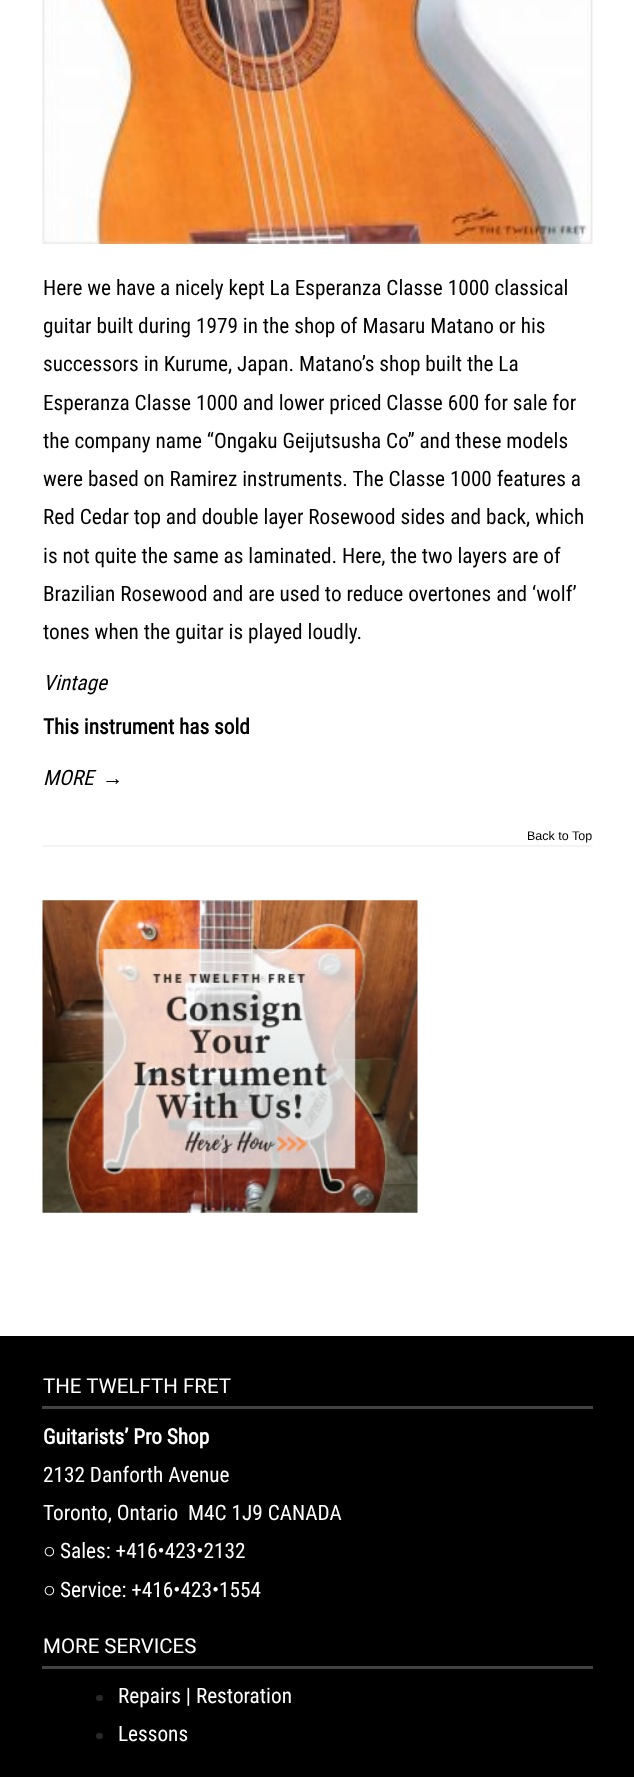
(async () => {
    const canvas = document.querySelector("canvas");
    canvas.width = 634;
    canvas.height = 1777;
    const context = canvas.getContext("2d");
    context.miterLimit = 4;
    context.fontKerning = "normal";
    function write(s, x, y, font, color) {
        context.font = font;
        context.fillStyle = color;
        context.fillText(s, x, y);
    }
    function block(x, y, w, h, color) {
        context.fillStyle = color;
        context.fillRect(x, y, w, h);
    }
    function card(x, y, w, h, r, color) {
        context.fillStyle = color;
        context.beginPath();
        context.roundRect(x, y, w, h, r);
        context.fill();
    }
    async function photo(src, x, y, w, h) {
        const img = new Image();
        img.src = src;
        await img.decode();
        context.drawImage(img, x, y, w, h);
    }

    block(0, 0, 634, 1777, "rgb(255, 255, 255)");
    await photo("media/1.png", 42, 0, 551, 244);
    write("Here we have a nicely kept La Esperanza Classe 1000 classical", 43, 295, "21.25px Roboto Condensed", "rgb(0, 0, 0)");
    write("guitar built during 1979 in the shop of Masaru Matano or his", 43, 333, "21.25px Roboto Condensed", "rgb(0, 0, 0)");
    write("successors in Kurume, Japan. Matano’s shop built the La", 43, 371, "21.25px Roboto Condensed", "rgb(0, 0, 0)");
    write("Esperanza Classe 1000 and lower priced Classe 600 for sale for", 43, 410, "21.25px Roboto Condensed", "rgb(0, 0, 0)");
    write("the company name “Ongaku Geijutsusha Co” and these models", 43, 448, "21.25px Roboto Condensed", "rgb(0, 0, 0)");
    write("were based on Ramirez instruments. The Classe 1000 features a", 43, 486, "21.25px Roboto Condensed", "rgb(0, 0, 0)");
    write("Red Cedar top and double layer Rosewood sides and back, which", 43, 524, "21.25px Roboto Condensed", "rgb(0, 0, 0)");
    write("is not quite the same as laminated. Here, the two layers are of", 43, 563, "21.25px Roboto Condensed", "rgb(0, 0, 0)");
    write("Brazilian Rosewood and are used to reduce overtones and ‘wolf’", 43, 601, "21.25px Roboto Condensed", "rgb(0, 0, 0)");
    write("tones when the guitar is played loudly.", 43, 639, "21.25px Roboto Condensed", "rgb(0, 0, 0)");
    write("Vintage", 43, 690, "italic 21.25px Roboto Condensed", "rgb(0, 0, 0)");
    write("This instrument has sold", 43, 734, "bold 21.25px Roboto Condensed", "rgb(0, 0, 0)");
    write("MORE", 43, 785, "italic 21.25px Roboto Condensed", "rgb(0, 0, 0)");
    write("→", 102, 785, "21.25px Liberation Serif", "rgb(0, 0, 0)");
    await photo("media/2.png", 42, 845, 551, 2);
    write("Back to Top", 527, 840, "12.5px Liberation Sans", "rgb(0, 0, 0)");
    await photo("media/3.png", 42, 900, 376, 313);
    block(0, 1336, 634, 441, "rgb(0, 0, 0)");
    block(42, 1406, 551, 3, "rgb(67, 67, 67)");
    write("THE TWELFTH FRET", 43, 1393, "20.5px Roboto", "rgb(255, 255, 255)");
    write("Guitarists’ Pro Shop", 43, 1444, "bold 21.25px Roboto Condensed", "rgb(255, 255, 255)");
    write("2132 Danforth Avenue", 43, 1482, "21.25px Roboto Condensed", "rgb(255, 255, 255)");
    write("Toronto, Ontario  M4C 1J9 CANADA", 43, 1520, "21.25px Roboto Condensed", "rgb(255, 255, 255)");
    write("○", 43, 1558, "21.25px Liberation Serif", "rgb(255, 255, 255)");
    write("Sales: +416•423•2132", 60, 1558, "21.25px Roboto Condensed", "rgb(255, 255, 255)");
    write("○", 43, 1597, "21.25px Liberation Serif", "rgb(255, 255, 255)");
    write("Service: +416•423•1554", 60, 1597, "21.25px Roboto Condensed", "rgb(255, 255, 255)");
    block(42, 1666, 551, 3, "rgb(67, 67, 67)");
    write("MORE SERVICES", 43, 1653, "20.5px Roboto", "rgb(255, 255, 255)");
    card(96, 1695, 7, 6, 3, "rgb(40, 40, 40)");
    write("Repairs | Restoration", 118, 1703, "21.25px Roboto Condensed", "rgb(255, 255, 255)");
    card(96, 1733, 7, 6, 3, "rgb(40, 40, 40)");
    write("Lessons", 118, 1741, "21.25px Roboto Condensed", "rgb(255, 255, 255)");
})();
